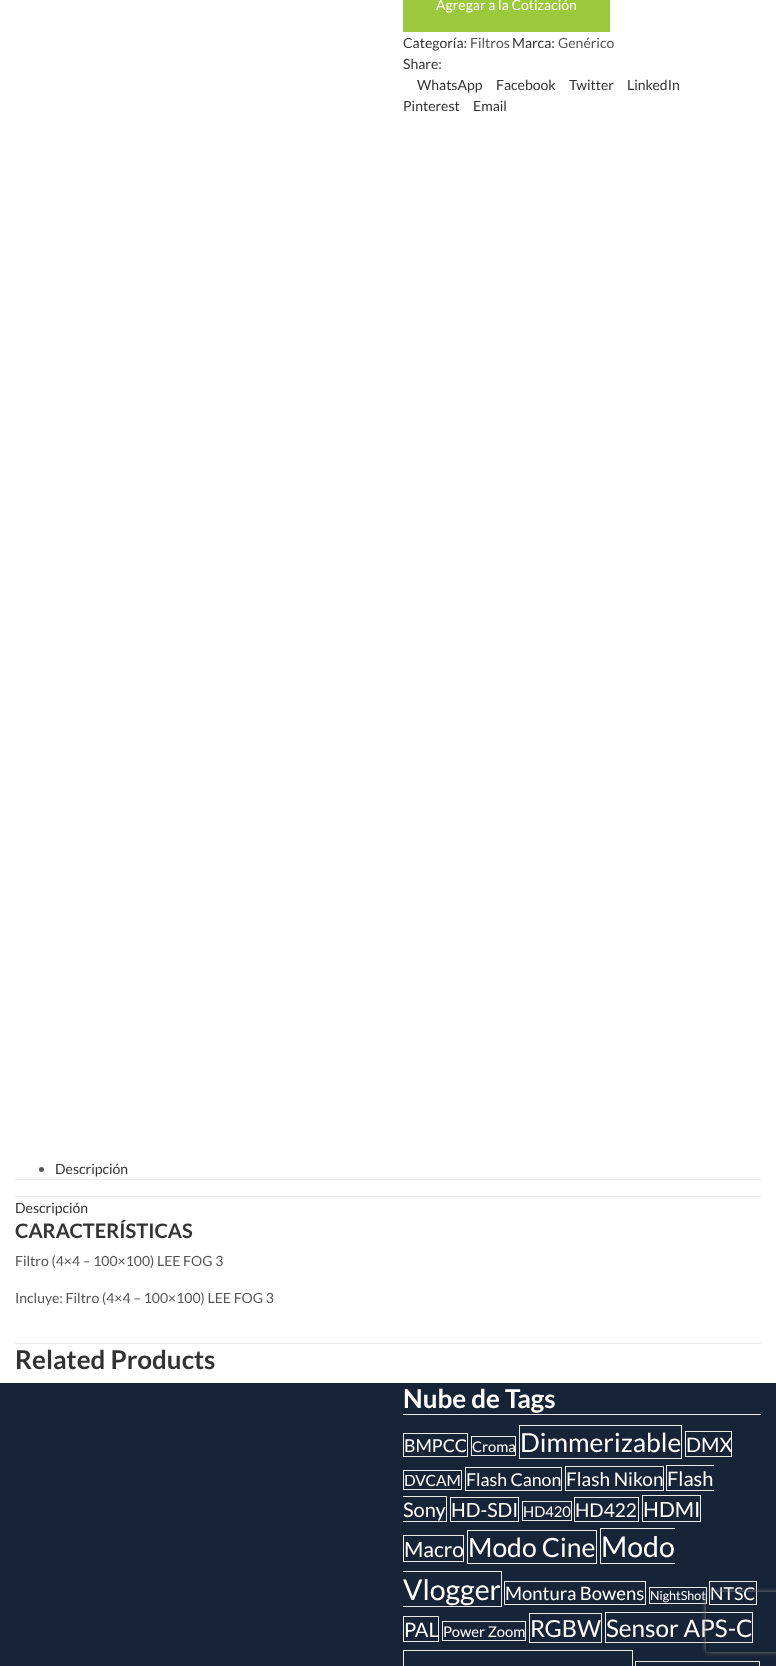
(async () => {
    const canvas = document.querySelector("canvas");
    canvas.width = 776;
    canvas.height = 1666;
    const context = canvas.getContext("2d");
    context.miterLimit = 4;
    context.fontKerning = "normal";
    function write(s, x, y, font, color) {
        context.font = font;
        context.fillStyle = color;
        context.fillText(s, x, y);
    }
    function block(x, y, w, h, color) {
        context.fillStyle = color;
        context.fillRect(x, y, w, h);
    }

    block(0, 0, 776, 1666, "rgb(255, 255, 255)");
    block(403, 0, 207, 32, "rgb(154, 202, 60)");
    write("Agregar a la Cotización", 436, 10, "14px Lato", "rgb(255, 255, 255)");
    write("Categoría:", 403, 48, "14px Lato", "rgb(51, 51, 51)");
    write("Filtros", 470, 48, "14px Lato", "rgb(85, 85, 85)");
    write("Marca:", 512, 48, "14px Lato", "rgb(51, 51, 51)");
    write("Genérico", 558, 48, "14px Lato", "rgb(85, 85, 85)");
    write("Share:", 403, 69, "14px Lato", "rgb(51, 51, 51)");
    write("WhatsApp", 417, 90, "14px Lato", "rgb(51, 51, 51)");
    write("Facebook", 496, 90, "14px Lato", "rgb(51, 51, 51)");
    write("Twitter", 569, 90, "14px Lato", "rgb(51, 51, 51)");
    write("LinkedIn", 627, 90, "14px Lato", "rgb(51, 51, 51)");
    write("Pinterest", 403, 111, "14px Lato", "rgb(51, 51, 51)");
    write("Email", 473, 111, "14px Lato", "rgb(51, 51, 51)");
    block(15, 1179, 746, 1, "rgb(233, 233, 233)");
    context.fillStyle = "rgb(85, 85, 85)";
    context.beginPath();
    context.arc(41.5, 1169.5, 2.5, 0, Math.PI * 2);
    context.fill();
    write("Descripción", 55, 1174, "14px Lato", "rgb(51, 51, 51)");
    block(15, 1196, 746, 1, "rgb(233, 233, 233)");
    block(15, 1343, 746, 1, "rgb(233, 233, 233)");
    write("Descripción", 15, 1213, "14px Lato", "rgb(51, 51, 51)");
    write("CARACTERÍSTICAS", 15, 1238, "bold 20px Lato", "rgb(51, 51, 51)");
    write("Filtro (4×4 – 100×100) LEE FOG 3", 15, 1266, "14px Lato", "rgb(85, 85, 85)");
    write("Incluye: Filtro (4×4 – 100×100) LEE FOG 3", 15, 1303, "14px Lato", "rgb(85, 85, 85)");
    write("Related Products", 15, 1369, "bold 26px Lato", "rgb(51, 51, 51)");
    block(0, 1383, 776, 283, "rgb(23, 35, 55)");
    block(403, 1414, 358, 1, "rgb(233, 233, 233)");
    write("Nube de Tags", 403, 1408, "bold 26px Lato", "rgb(255, 255, 255)");
    context.strokeStyle = "rgb(233, 233, 233)";
    context.strokeRect(403.5, 1433.5, 64, 23);
    write("BMPCC", 404, 1452, "17.75px Lato", "rgb(255, 255, 255)");
    context.strokeRect(471.5, 1436.5, 44, 19);
    write("Croma", 472, 1452, "14.75px Lato", "rgb(255, 255, 255)");
    context.strokeRect(519.5, 1425.5, 162, 33);
    write("Dimmerizable", 520, 1452, "26.25px Lato", "rgb(255, 255, 255)");
    context.strokeRect(685.5, 1431.5, 46, 25);
    write("DMX", 686, 1452, "20px Lato", "rgb(255, 255, 255)");
    context.strokeRect(403.5, 1470.5, 58, 19);
    write("DVCAM", 404, 1486, "15.5px Lato", "rgb(255, 255, 255)");
    context.strokeRect(465.5, 1467.5, 96, 23);
    write("Flash Canon", 466, 1486, "17.75px Lato", "rgb(255, 255, 255)");
    context.strokeRect(565.5, 1466.5, 98, 24);
    write("Flash Nikon", 566, 1486, "19px Lato", "rgb(255, 255, 255)");
    write("Flash", 667, 1486, "20px Lato", "rgb(255, 255, 255)");
    block(666, 1465, 48, 1, "rgb(233, 233, 233)");
    block(666, 1490, 48, 1, "rgb(233, 233, 233)");
    block(666, 1465, 1, 26, "rgb(233, 233, 233)");
    write("Sony", 403, 1517, "20px Lato", "rgb(255, 255, 255)");
    block(403, 1496, 44, 1, "rgb(233, 233, 233)");
    block(446, 1496, 1, 26, "rgb(233, 233, 233)");
    block(403, 1521, 44, 1, "rgb(233, 233, 233)");
    context.strokeRect(450.5, 1497.5, 68, 24);
    write("HD-SDI", 451, 1517, "19.5px Lato", "rgb(255, 255, 255)");
    context.strokeRect(522.5, 1501.5, 49, 19);
    write("HD420", 523, 1517, "14.75px Lato", "rgb(255, 255, 255)");
    context.strokeRect(574.5, 1497.5, 64, 24);
    write("HD422", 575, 1517, "19px Lato", "rgb(255, 255, 255)");
    context.strokeRect(642.5, 1495.5, 58, 26);
    write("HDMI", 643, 1517, "21px Lato", "rgb(255, 255, 255)");
    context.strokeRect(403.5, 1535.5, 60, 26);
    write("Macro", 404, 1557, "21px Lato", "rgb(255, 255, 255)");
    context.strokeRect(467.5, 1530.5, 129, 33);
    write("Modo Cine", 468, 1557, "26.5px Lato", "rgb(255, 255, 255)");
    write("Modo", 601, 1557, "28.5px Lato", "rgb(255, 255, 255)");
    block(600, 1528, 75, 1, "rgb(233, 233, 233)");
    block(600, 1563, 75, 1, "rgb(233, 233, 233)");
    block(600, 1528, 1, 36, "rgb(233, 233, 233)");
    write("Vlogger", 403, 1600, "28.5px Lato", "rgb(255, 255, 255)");
    block(403, 1571, 99, 1, "rgb(233, 233, 233)");
    block(501, 1571, 1, 36, "rgb(233, 233, 233)");
    block(403, 1606, 99, 1, "rgb(233, 233, 233)");
    context.strokeRect(504.5, 1581.5, 141, 23);
    write("Montura Bowens", 505, 1600, "18.5px Lato", "rgb(255, 255, 255)");
    context.strokeRect(649.5, 1587.5, 57, 16);
    write("NightShot", 650, 1600, "12.5px Lato", "rgb(255, 255, 255)");
    context.strokeRect(709.5, 1581.5, 47, 23);
    write("NTSC", 710, 1600, "17.75px Lato", "rgb(255, 255, 255)");
    context.strokeRect(403.5, 1616.5, 35, 25);
    write("PAL", 404, 1637, "20px Lato", "rgb(255, 255, 255)");
    context.strokeRect(442.5, 1621.5, 83, 19);
    write("Power Zoom", 443, 1637, "14.75px Lato", "rgb(255, 255, 255)");
    context.strokeRect(529.5, 1613.5, 72, 29);
    write("RGBW", 530, 1637, "23.5px Lato", "rgb(255, 255, 255)");
    context.strokeRect(605.5, 1612.5, 147, 30);
    write("Sensor APS-C", 606, 1637, "24.25px Lato", "rgb(255, 255, 255)");
    context.strokeRect(403.5, 1650.5, 229, 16);
    context.strokeRect(635.5, 1661.5, 124, 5);
    context.save();
    context.beginPath();
    context.moveTo(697, 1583);
    context.lineTo(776, 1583);
    context.lineTo(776, 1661);
    context.lineTo(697, 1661);
    context.closePath();
    context.moveTo(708, 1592);
    context.lineTo(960, 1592);
    context.bezierCurveTo(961, 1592, 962, 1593, 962, 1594);
    context.lineTo(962, 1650);
    context.bezierCurveTo(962, 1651, 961, 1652, 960, 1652);
    context.lineTo(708, 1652);
    context.bezierCurveTo(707, 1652, 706, 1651, 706, 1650);
    context.lineTo(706, 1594);
    context.bezierCurveTo(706, 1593, 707, 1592, 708, 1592);
    context.closePath();
    context.clip("evenodd");
    context.fillStyle = "rgb(128, 128, 128)";
    context.filter = "blur(2.5px)";
    context.beginPath();
    context.roundRect(706, 1592, 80, 60, 2);
    context.fill();
    context.filter = "none";
    context.restore();
})();
